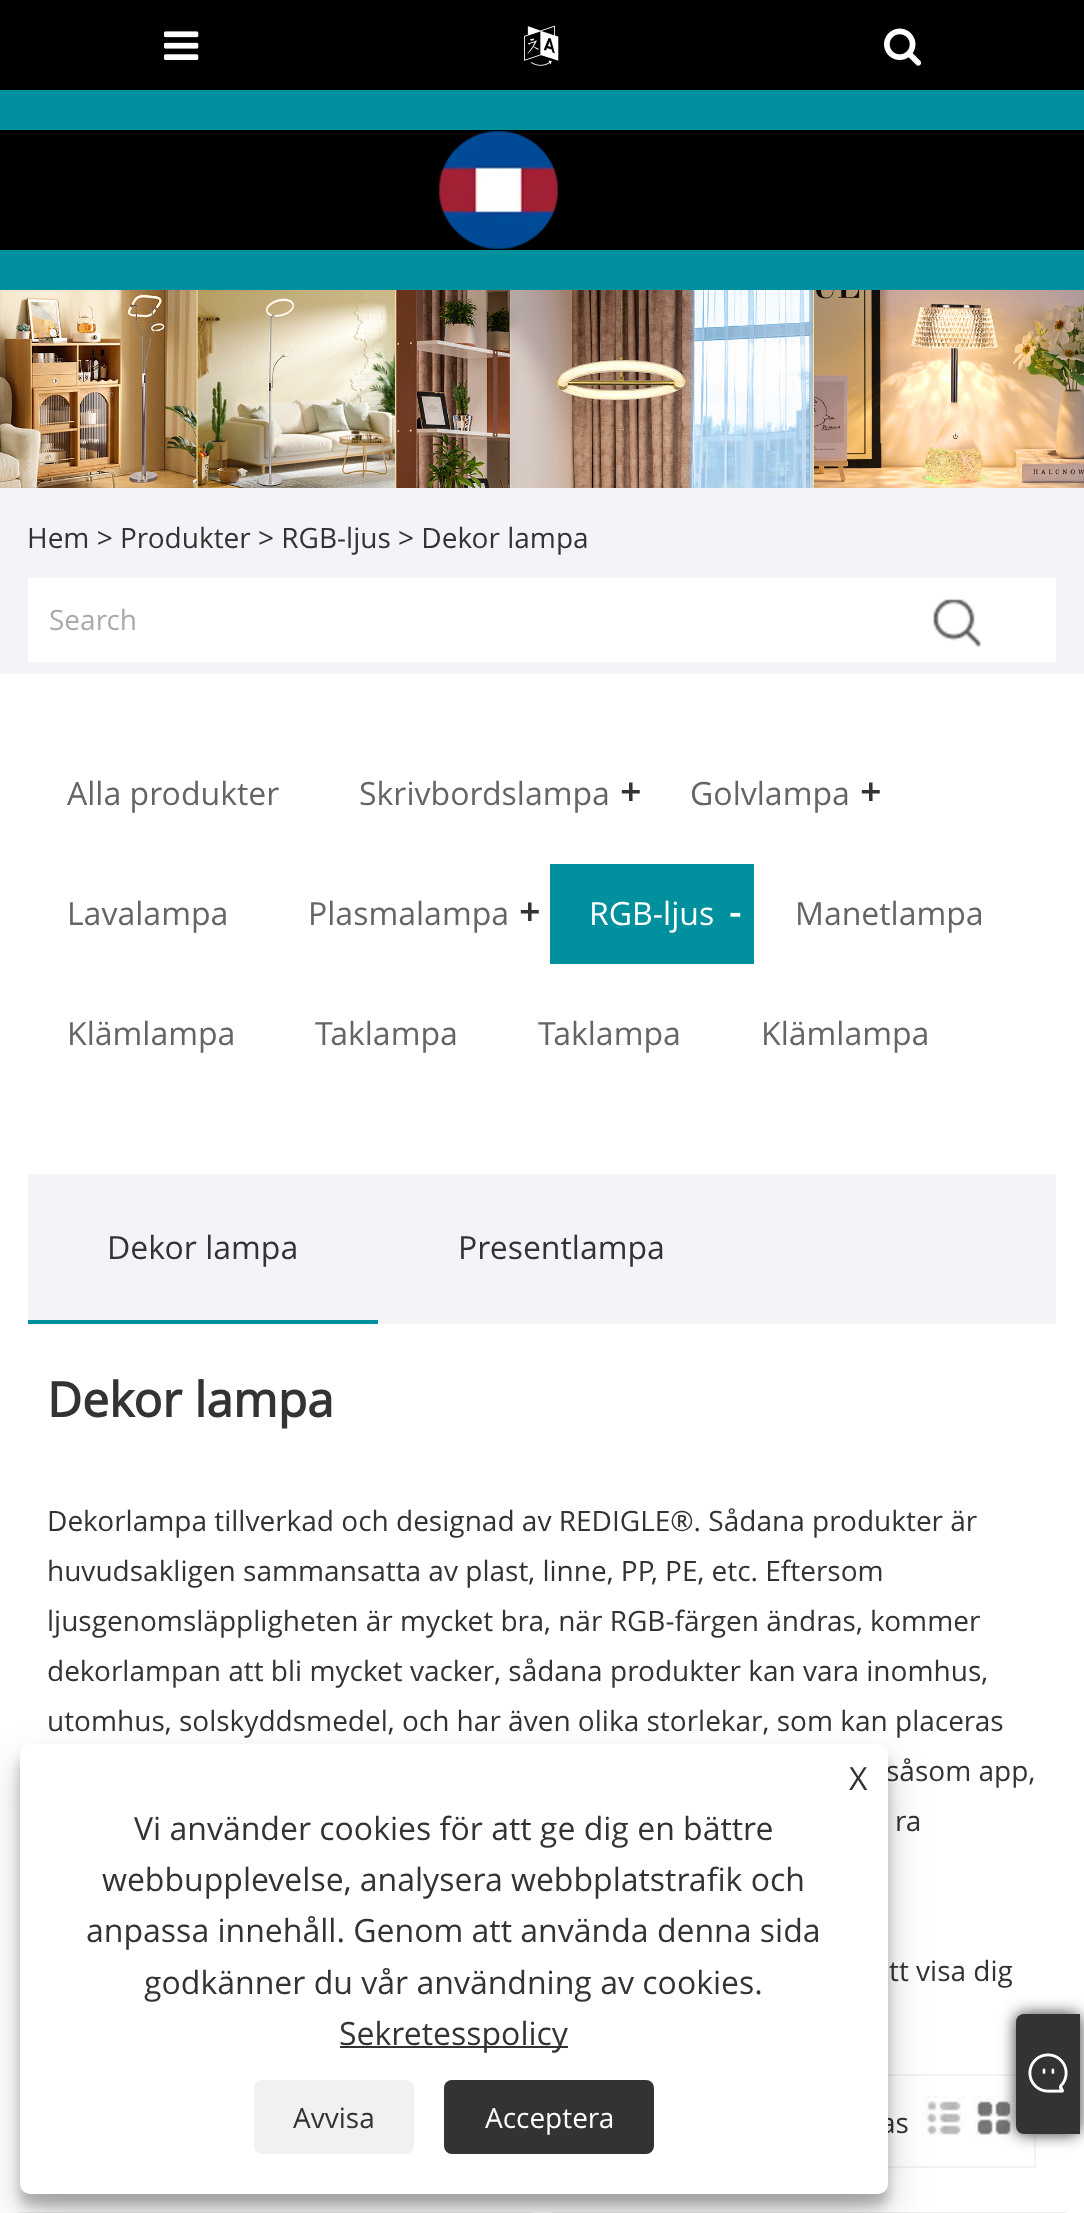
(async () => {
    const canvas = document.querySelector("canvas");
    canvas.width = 1084;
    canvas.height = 2213;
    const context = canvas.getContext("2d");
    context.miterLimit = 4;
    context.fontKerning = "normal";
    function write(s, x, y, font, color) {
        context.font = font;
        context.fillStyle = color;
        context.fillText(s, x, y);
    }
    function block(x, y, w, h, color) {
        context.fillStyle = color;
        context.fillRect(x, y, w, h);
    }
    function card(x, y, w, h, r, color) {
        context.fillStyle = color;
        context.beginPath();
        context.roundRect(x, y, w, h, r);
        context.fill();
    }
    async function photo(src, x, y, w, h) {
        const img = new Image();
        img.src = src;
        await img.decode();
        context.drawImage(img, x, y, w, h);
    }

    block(0, 0, 1084, 2213, "rgb(255, 255, 255)");
    block(0, 0, 1084, 90, "rgb(0, 0, 0)");
    await photo("media/1.png", 164, 31, 35, 29);
    await photo("media/2.png", 524, 25, 35, 41);
    await photo("media/3.png", 884, 28, 38, 38);
    block(0, 90, 1084, 200, "rgb(0, 144, 158)");
    block(0, 130, 1084, 120, "rgb(0, 0, 0)");
    await photo("media/4.png", 439, 131, 119, 118);
    await photo("media/5.png", 0, 290, 1084, 198);
    block(0, 488, 1084, 186, "rgb(243, 244, 248)");
    write("Hem > Produkter > RGB-ljus > Dekor lampa", 27, 548, "28px Open Sans", "rgb(51, 51, 51)");
    block(28, 578, 1028, 84, "rgb(255, 255, 255)");
    write("Search", 49, 630, "28px Open Sans", "rgb(170, 170, 170)");
    await photo("media/6.png", 933, 599, 48, 48);
    write("Alla produkter", 67, 805, "32px Open Sans", "rgb(100, 101, 101)");
    write("Skrivbordslampa", 359, 805, "32px Open Sans", "rgb(100, 101, 101)");
    write("+", 620, 805, "bold 36px Open Sans", "rgb(51, 51, 51)");
    write("Golvlampa", 690, 805, "32px Open Sans", "rgb(100, 101, 101)");
    write("+", 860, 805, "bold 36px Open Sans", "rgb(51, 51, 51)");
    write("Lavalampa", 67, 925, "32px Open Sans", "rgb(100, 101, 101)");
    write("Plasmalampa", 308, 925, "32px Open Sans", "rgb(100, 101, 101)");
    write("+", 519, 925, "bold 36px Open Sans", "rgb(51, 51, 51)");
    block(550, 864, 204, 100, "rgb(0, 144, 158)");
    write("RGB-ljus", 589, 925, "32px Open Sans", "rgb(255, 255, 255)");
    write("-", 729, 925, "bold 36px Open Sans", "rgb(255, 255, 255)");
    write("Manetlampa", 795, 925, "32px Open Sans", "rgb(100, 101, 101)");
    write("Klämlampa", 67, 1045, "32px Open Sans", "rgb(100, 101, 101)");
    write("Taklampa", 315, 1045, "32px Open Sans", "rgb(100, 101, 101)");
    write("Taklampa", 538, 1045, "32px Open Sans", "rgb(100, 101, 101)");
    write("Klämlampa", 761, 1045, "32px Open Sans", "rgb(100, 101, 101)");
    block(28, 1174, 1028, 150, "rgb(243, 244, 248)");
    write("Dekor lampa", 107, 1259, "32px Open Sans", "rgb(51, 51, 51)");
    block(28, 1320, 350, 4, "rgb(0, 144, 158)");
    write("Presentlampa", 458, 1259, "32px Open Sans", "rgb(51, 51, 51)");
    write("Dekor lampa", 47, 1417, "bold 48px Open Sans", "rgb(51, 51, 51)");
    write("Dekorlampa tillverkad och designad av REDIGLE®. Sådana produkter är", 47, 1531, "28px Open Sans", "rgb(51, 51, 51)");
    write("huvudsakligen sammansatta av plast, linne, PP, PE, etc. Eftersom", 47, 1581, "28px Open Sans", "rgb(51, 51, 51)");
    write("ljusgenomsläppligheten är mycket bra, när RGB-färgen ändras, kommer", 47, 1631, "28px Open Sans", "rgb(51, 51, 51)");
    write("dekorlampan att bli mycket vacker, sådana produkter kan vara inomhus,", 47, 1681, "28px Open Sans", "rgb(51, 51, 51)");
    write("utomhus, solskyddsmedel, och har även olika storlekar, som kan placeras", 47, 1731, "28px Open Sans", "rgb(51, 51, 51)");
    write("såsom app,", 886, 1781, "28px Open Sans", "rgb(51, 51, 51)");
    write("ra", 895, 1831, "28px Open Sans", "rgb(51, 51, 51)");
    write("tt visa dig", 889, 1981, "28px Open Sans", "rgb(51, 51, 51)");
    context.strokeStyle = "rgb(243, 243, 243)";
    context.lineWidth = 2;
    context.strokeRect(49, 2075, 986, 92);
    write("as", 880, 2133, "28px Open Sans", "rgb(51, 51, 51)");
    await photo("media/7.png", 924, 2096, 42, 40);
    await photo("media/8.png", 974, 2096, 40, 41);
    context.strokeStyle = "rgb(238, 238, 238)";
    context.strokeRect(19, 2213, 512, 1);
    context.strokeRect(553, 2213, 512, 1);
    context.fillStyle = "rgba(0, 0, 0, 0.23)";
    context.filter = "blur(6px)";
    context.beginPath();
    context.roundRect(20, 1756, 868, 450, 10);
    context.fill();
    context.filter = "none";
    context.fillStyle = "rgba(0, 0, 0, 0.19)";
    context.filter = "blur(20px)";
    context.beginPath();
    context.roundRect(20, 1764, 868, 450, 10);
    context.fill();
    context.filter = "none";
    card(20, 1744, 868, 450, 10, "rgb(255, 255, 255)");
    write("X", 849, 1790, "32px Open Sans", "rgb(51, 51, 51)");
    write("Vi använder cookies för att ge dig en bättre", 134, 1840, "32px Open Sans", "rgb(51, 51, 51)");
    write("webbupplevelse, analysera webbplatstrafik och", 102, 1891, "32px Open Sans", "rgb(51, 51, 51)");
    write("anpassa innehåll. Genom att använda denna sida", 86, 1942, "32px Open Sans", "rgb(51, 51, 51)");
    write("godkänner du vår användning av cookies.", 144, 1994, "32px Open Sans", "rgb(51, 51, 51)");
    block(340, 2046, 228, 2, "rgb(51, 51, 51)");
    write("Sekretesspolicy", 339, 2045, "32px Open Sans", "rgb(51, 51, 51)");
    card(254, 2080, 160, 74, 8, "rgb(241, 241, 241)");
    write("Avvisa", 293, 2128, "28px Open Sans", "rgb(51, 51, 51)");
    card(444, 2080, 210, 74, 8, "rgb(51, 51, 51)");
    write("Acceptera", 485, 2128, "28px Open Sans", "rgb(255, 255, 255)");
    context.fillStyle = "rgb(51, 51, 51)";
    context.filter = "blur(8px)";
    context.beginPath();
    context.roundRect(1016, 2014, 64, 120, 8);
    context.fill();
    context.filter = "none";
    context.beginPath();
    context.roundRect(1016, 2014, 64, 120, [8, 0, 0, 8]);
    context.fill();
    await photo("media/9.png", 1028, 2053, 40, 40);
})();
